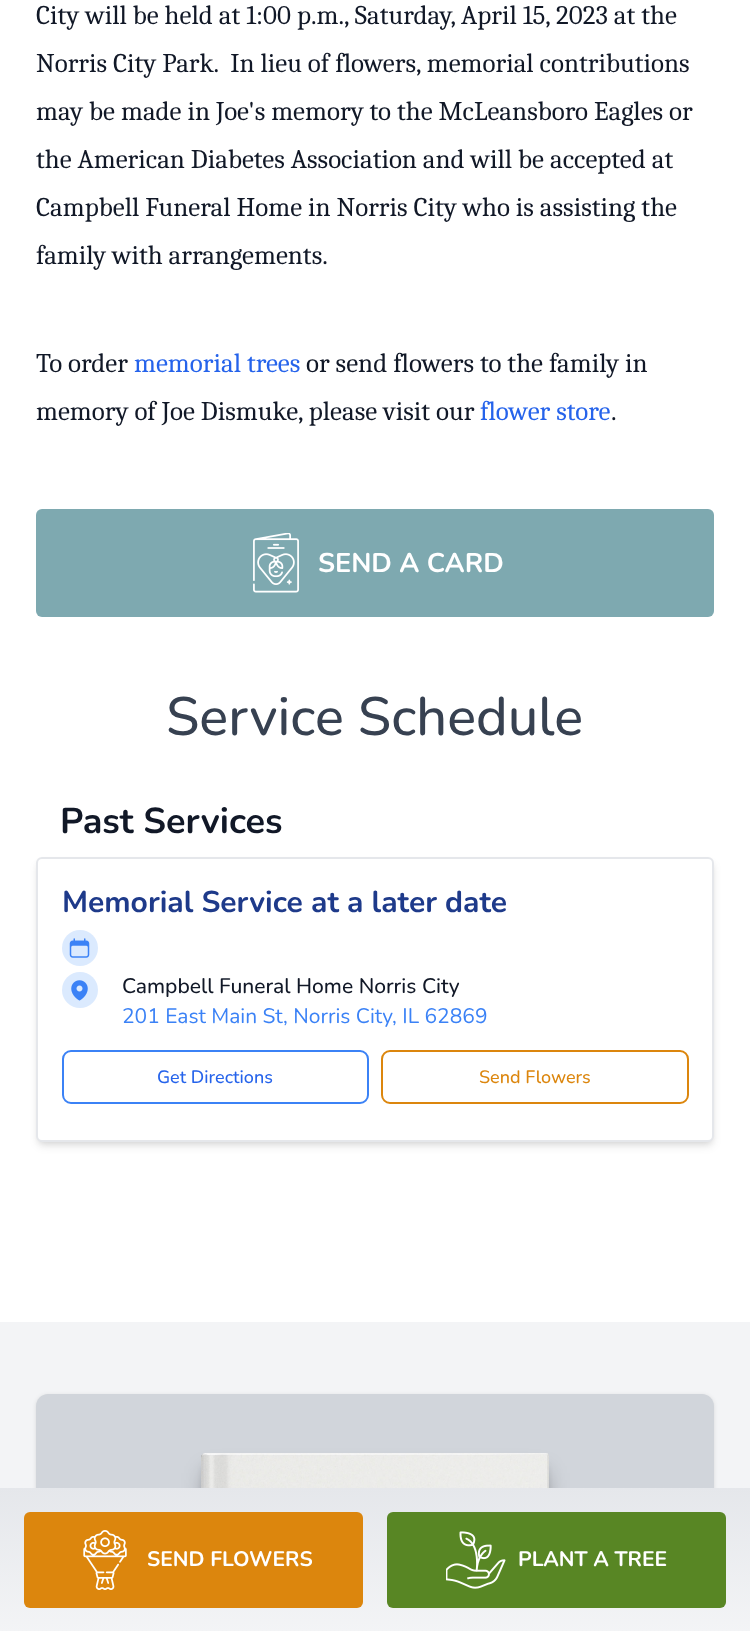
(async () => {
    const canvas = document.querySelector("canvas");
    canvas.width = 750;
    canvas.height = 1631;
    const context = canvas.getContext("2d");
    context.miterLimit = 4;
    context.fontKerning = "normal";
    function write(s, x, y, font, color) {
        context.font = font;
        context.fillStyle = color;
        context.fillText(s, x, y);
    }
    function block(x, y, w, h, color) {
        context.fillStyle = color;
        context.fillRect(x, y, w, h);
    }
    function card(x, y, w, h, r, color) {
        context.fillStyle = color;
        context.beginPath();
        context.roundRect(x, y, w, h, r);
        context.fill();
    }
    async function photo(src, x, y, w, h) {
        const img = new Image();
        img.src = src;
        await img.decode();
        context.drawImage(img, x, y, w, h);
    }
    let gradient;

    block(0, 0, 750, 1631, "rgb(255, 255, 255)");
    write("City will be held at 1:00 p.m., Saturday, April 15, 2023 at the", 36, 24, "27px Caladea", "rgb(17, 24, 39)");
    write("Norris City Park.  In lieu of flowers, memorial contributions", 36, 72, "27px Caladea", "rgb(17, 24, 39)");
    write("may be made in Joe's memory to the McLeansboro Eagles or", 36, 120, "27px Caladea", "rgb(17, 24, 39)");
    write("the American Diabetes Association and will be accepted at", 36, 168, "27px Caladea", "rgb(17, 24, 39)");
    write("Campbell Funeral Home in Norris City who is assisting the", 36, 216, "27px Caladea", "rgb(17, 24, 39)");
    write("family with arrangements.", 36, 264, "27px Caladea", "rgb(17, 24, 39)");
    write("To order", 36, 372, "27px Caladea", "rgb(17, 24, 39)");
    write("memorial trees", 134, 372, "27px Caladea", "rgb(37, 99, 235)");
    write("or send flowers to the family in", 306, 372, "27px Caladea", "rgb(17, 24, 39)");
    write("memory of Joe Dismuke, please visit our", 36, 420, "27px Caladea", "rgb(17, 24, 39)");
    write("flower store", 480, 420, "27px Caladea", "rgb(37, 99, 235)");
    write(".", 611, 420, "27px Caladea", "rgb(17, 24, 39)");
    card(36, 509, 678, 108, 6, "rgb(126, 169, 176)");
    await photo("media/1.png", 253, 533, 46, 60);
    write("SEND A CARD", 318, 572, "bold 27px Nunito", "rgb(255, 255, 255)");
    write("Service Schedule", 166, 735, "500 54px Nunito", "rgb(55, 65, 81)");
    write("Past Services", 60, 833, "bold 36px Nunito", "rgb(17, 24, 39)");
    context.fillStyle = "rgba(0, 0, 0, 0.1)";
    context.filter = "blur(3px)";
    context.beginPath();
    context.roundRect(39, 863, 672, 279, 3);
    context.fill();
    context.filter = "none";
    context.filter = "blur(4.5px)";
    context.beginPath();
    context.roundRect(38, 864, 675, 282, 5);
    context.fill();
    context.filter = "none";
    context.fillStyle = "rgb(255, 255, 255)";
    context.beginPath();
    context.roundRect(37, 858, 676, 283, 5);
    context.fill();
    context.strokeStyle = "rgb(229, 231, 235)";
    context.lineWidth = 2;
    context.stroke();
    write("Memorial Service at a later date", 62, 912, "bold 30px Nunito", "rgb(30, 58, 138)");
    context.fillStyle = "rgb(219, 234, 254)";
    context.beginPath();
    context.arc(80, 948, 18, 0, Math.PI * 2);
    context.fill();
    await photo("media/2.png", 69, 938, 21, 20);
    context.beginPath();
    context.arc(80, 990, 18, 0, Math.PI * 2);
    context.fill();
    await photo("media/3.png", 71, 980, 17, 21);
    write("Campbell Funeral Home Norris City", 122, 993, "500 21px Nunito", "rgb(17, 24, 39)");
    write("201 East Main St, Norris City, IL 62869", 122, 1023, "21px Nunito", "rgb(59, 130, 246)");
    context.beginPath();
    context.roundRect(63, 1051, 305, 52, 8);
    context.strokeStyle = "rgb(59, 130, 246)";
    context.stroke();
    write("Get Directions", 157, 1083, "500 18px Nunito", "rgb(37, 99, 235)");
    context.beginPath();
    context.roundRect(382, 1051, 306, 52, 8);
    context.strokeStyle = "rgb(220, 134, 13)";
    context.stroke();
    write("Send Flowers", 479, 1083, "500 18px Nunito", "rgb(220, 134, 13)");
    block(0, 1322, 750, 166, "rgb(243, 244, 246)");
    context.fillStyle = "rgba(0, 0, 0, 0.1)";
    context.filter = "blur(2px)";
    context.beginPath();
    context.roundRect(36, 1395, 678, 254, 12);
    context.fill();
    context.filter = "none";
    context.fillStyle = "rgb(209, 213, 219)";
    context.beginPath();
    context.moveTo(48, 1394);
    context.lineTo(702, 1394);
    context.bezierCurveTo(708.5, 1394, 714, 1399.5, 714, 1406);
    context.lineTo(714, 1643);
    context.lineTo(36, 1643);
    context.lineTo(36, 1406);
    context.bezierCurveTo(36, 1399.5, 41.5, 1394, 48, 1394);
    context.closePath();
    context.fill();
    context.fillStyle = "rgba(0, 0, 0, 0.35)";
    context.filter = "blur(4.5px)";
    context.beginPath();
    context.rect(207, 1466, 336, 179);
    context.fill();
    context.filter = "none";
    context.filter = "blur(11px)";
    context.beginPath();
    context.rect(206, 1473, 339, 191);
    context.fill();
    context.filter = "none";
    await photo("media/4.png", 201, 1453, 348, 35);
    await photo("media/5.png", 201, 1453, 348, 35);
    gradient = context.createLinearGradient(375, 1488, 375, 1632);
    gradient.addColorStop(0, "rgb(229, 231, 235)");
    gradient.addColorStop(1, "rgb(243, 244, 246)");
    context.fillStyle = gradient;
    context.fillRect(0, 1488, 750, 143);
    card(24, 1512, 339, 96, 6, "rgb(220, 134, 13)");
    await photo("media/6.png", 83, 1530, 44, 60);
    write("SEND FLOWERS", 147, 1566, "bold 21px Nunito", "rgb(255, 255, 255)");
    card(387, 1512, 339, 96, 6, "rgb(88, 134, 36)");
    await photo("media/7.png", 446, 1531, 60, 58);
    write("PLANT A TREE", 518, 1566, "bold 21px Nunito", "rgb(255, 255, 255)");
})();
